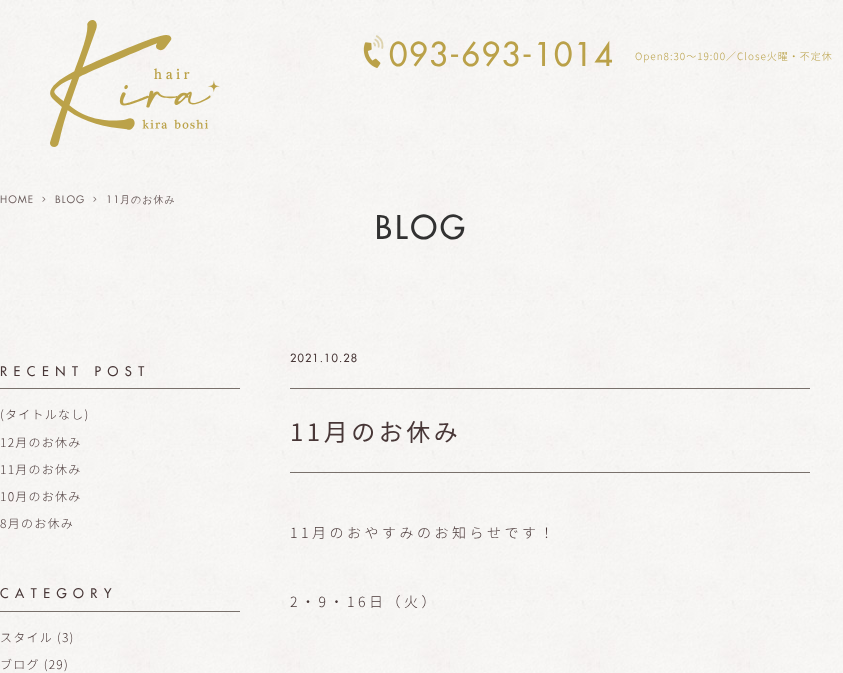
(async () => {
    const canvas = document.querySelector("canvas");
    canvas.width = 843;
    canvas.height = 673;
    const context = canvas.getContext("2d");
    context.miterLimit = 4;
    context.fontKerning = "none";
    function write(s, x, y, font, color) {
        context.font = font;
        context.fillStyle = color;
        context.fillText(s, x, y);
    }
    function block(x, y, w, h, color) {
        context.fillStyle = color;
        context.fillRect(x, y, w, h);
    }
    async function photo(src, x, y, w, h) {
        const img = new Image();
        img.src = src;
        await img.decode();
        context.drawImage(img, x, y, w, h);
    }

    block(0, 0, 843, 673, "rgb(255, 255, 255)");
    await photo("media/1.png", 0, 0, 843, 673);
    await photo("media/2.png", 50, 20, 170, 127);
    await photo("media/4.png", 363, 42, 18, 26);
    await photo("media/3.png", 373, 35, 11, 14);
    context.letterSpacing = "1.6px";
    write("093-693-1014", 389, 66, "500 32px Futura", "rgb(186, 161, 73)");
    context.letterSpacing = "1px";
    write("Open8:30～19:00／Close火曜・不定休", 635, 60, "300 10px Noto Sans JP", "rgb(186, 161, 73)");
    write("HOME", 0, 203, "10px Futura", "rgb(107, 93, 92)");
    await photo("media/5.png", 42, 196, 4, 6);
    write("BLOG", 55, 203, "10px Futura", "rgb(107, 93, 92)");
    await photo("media/6.png", 93, 196, 4, 6);
    write("11", 106, 203, "10px Futura", "rgb(107, 93, 92)");
    write("月のお休み", 120, 203, "500 10px WenQuanYi Zen Hei", "rgb(107, 93, 92)");
    context.letterSpacing = "3px";
    write("BLOG", 375, 239, "500 32px Futura", "rgb(49, 49, 49)");
    block(0, 388, 240, 1, "rgb(120, 112, 107)");
    context.letterSpacing = "6.5px";
    write("RECENT POST", 0, 376, "500 13px Futura", "rgb(72, 55, 55)");
    context.letterSpacing = "1.25px";
    write("(タイトルなし)", 0, 419, "300 12px Noto Sans JP", "rgb(72, 55, 55)");
    write("12月のお休み", 0, 447, "300 12px Noto Sans JP", "rgb(72, 55, 55)");
    write("11月のお休み", 0, 474, "300 12px Noto Sans JP", "rgb(72, 55, 55)");
    write("10月のお休み", 0, 501, "300 12px Noto Sans JP", "rgb(72, 55, 55)");
    write("8月のお休み", 0, 528, "300 12px Noto Sans JP", "rgb(72, 55, 55)");
    block(0, 611, 240, 1, "rgb(120, 112, 107)");
    context.letterSpacing = "6.5px";
    write("CATEGORY", 0, 598, "500 13px Futura", "rgb(72, 55, 55)");
    context.letterSpacing = "1.25px";
    write("スタイル (3)", 0, 642, "300 12px Noto Sans JP", "rgb(72, 55, 55)");
    write("ブログ (29)", 0, 669, "300 12px Noto Sans JP", "rgb(72, 55, 55)");
    block(290, 388, 520, 1, "rgb(120, 112, 107)");
    block(290, 472, 520, 1, "rgb(120, 112, 107)");
    context.letterSpacing = "1.1px";
    write("2021.10.28", 290, 362, "500 11px Futura", "rgb(72, 55, 55)");
    context.letterSpacing = "3.5px";
    write("11月のお休み", 290, 441, "24px Noto Sans JP", "rgb(72, 55, 55)");
    write("11月のおやすみのお知らせです！", 290, 538, "300 14px Noto Sans JP", "rgb(72, 55, 55)");
    write("2・9・16日（火）", 290, 607, "300 14px Noto Sans JP", "rgb(72, 55, 55)");
})();
